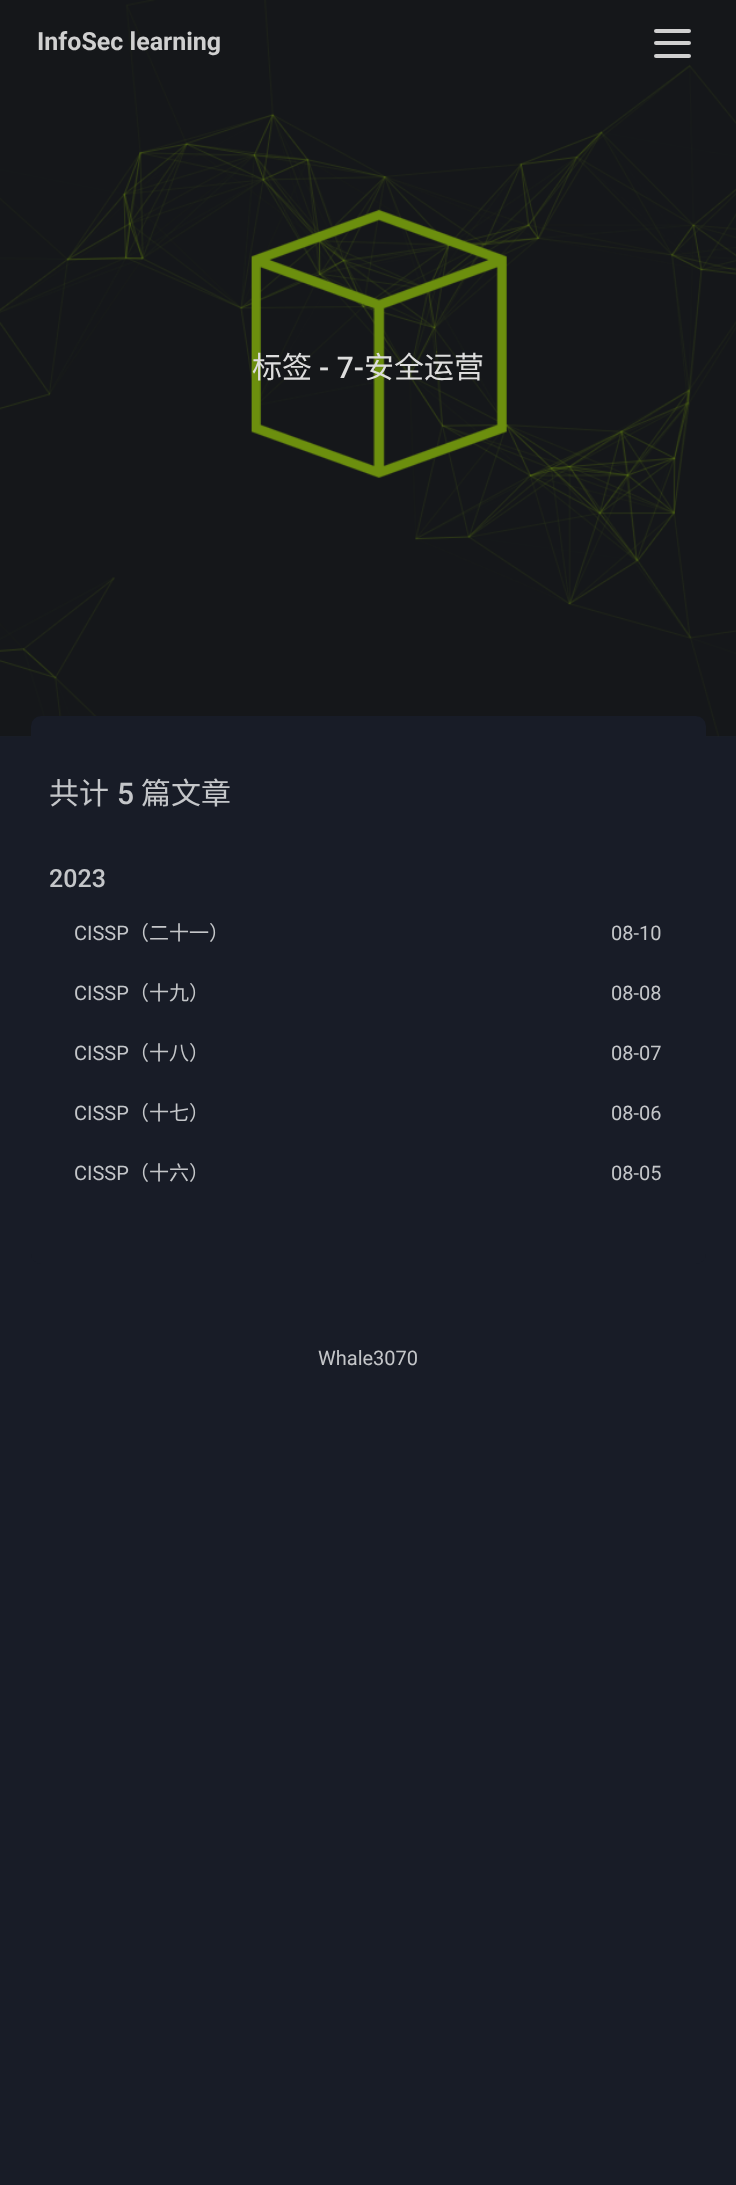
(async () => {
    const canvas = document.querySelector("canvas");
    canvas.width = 736;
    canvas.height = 2185;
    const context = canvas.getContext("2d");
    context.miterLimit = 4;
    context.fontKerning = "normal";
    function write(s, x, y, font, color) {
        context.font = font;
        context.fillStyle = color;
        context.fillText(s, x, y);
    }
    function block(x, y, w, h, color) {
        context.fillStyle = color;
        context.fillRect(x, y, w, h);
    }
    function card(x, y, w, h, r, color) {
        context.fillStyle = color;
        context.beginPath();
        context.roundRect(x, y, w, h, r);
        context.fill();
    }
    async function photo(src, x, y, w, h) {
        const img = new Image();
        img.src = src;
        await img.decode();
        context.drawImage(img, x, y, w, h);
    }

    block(0, 0, 736, 2185, "rgb(24, 28, 39)");
    await photo("media/1.png", 0, 0, 736, 737);
    write("InfoSec learning", 37, 50, "bold 25px Roboto", "rgb(208, 208, 208)");
    card(654, 29, 37, 4, 2, "rgb(208, 208, 208)");
    card(654, 41, 37, 4, 2, "rgb(208, 208, 208)");
    card(654, 54, 37, 4, 2, "rgb(208, 208, 208)");
    write("标签", 252, 378, "30px Noto Sans CJK SC", "rgb(221, 221, 221)");
    write("- 7-", 319, 378, "500 30px Roboto", "rgb(221, 221, 221)");
    write("安全运营", 364, 378, "30px Noto Sans CJK SC", "rgb(221, 221, 221)");
    card(31, 716, 675, 548, 10, "rgb(24, 28, 39)");
    write("共计", 49, 804, "30px Noto Sans CJK SC", "rgb(196, 198, 201)");
    write("5", 117, 804, "500 30px Roboto", "rgb(196, 198, 201)");
    write("篇文章", 141, 804, "30px Noto Sans CJK SC", "rgb(196, 198, 201)");
    write("2023", 49, 887, "500 25px Roboto", "rgb(196, 198, 201)");
    write("CISSP", 74, 940, "20px Roboto", "rgb(196, 198, 201)");
    write("（二十一）", 129, 940, "20px Noto Sans CJK SC", "rgb(196, 198, 201)");
    write("08-10", 611, 940, "20px Roboto", "rgb(196, 198, 201)");
    write("CISSP", 74, 1000, "20px Roboto", "rgb(196, 198, 201)");
    write("（十九）", 129, 1000, "20px Noto Sans CJK SC", "rgb(196, 198, 201)");
    write("08-08", 611, 1000, "20px Roboto", "rgb(196, 198, 201)");
    write("CISSP", 74, 1060, "20px Roboto", "rgb(196, 198, 201)");
    write("（十八）", 129, 1060, "20px Noto Sans CJK SC", "rgb(196, 198, 201)");
    write("08-07", 611, 1060, "20px Roboto", "rgb(196, 198, 201)");
    write("CISSP", 74, 1120, "20px Roboto", "rgb(196, 198, 201)");
    write("（十七）", 129, 1120, "20px Noto Sans CJK SC", "rgb(196, 198, 201)");
    write("08-06", 611, 1120, "20px Roboto", "rgb(196, 198, 201)");
    write("CISSP", 74, 1180, "20px Roboto", "rgb(196, 198, 201)");
    write("（十六）", 129, 1180, "20px Noto Sans CJK SC", "rgb(196, 198, 201)");
    write("08-05", 611, 1180, "20px Roboto", "rgb(196, 198, 201)");
    write("Whale3070", 318, 1365, "20px Roboto", "rgb(196, 198, 201)");
})();
